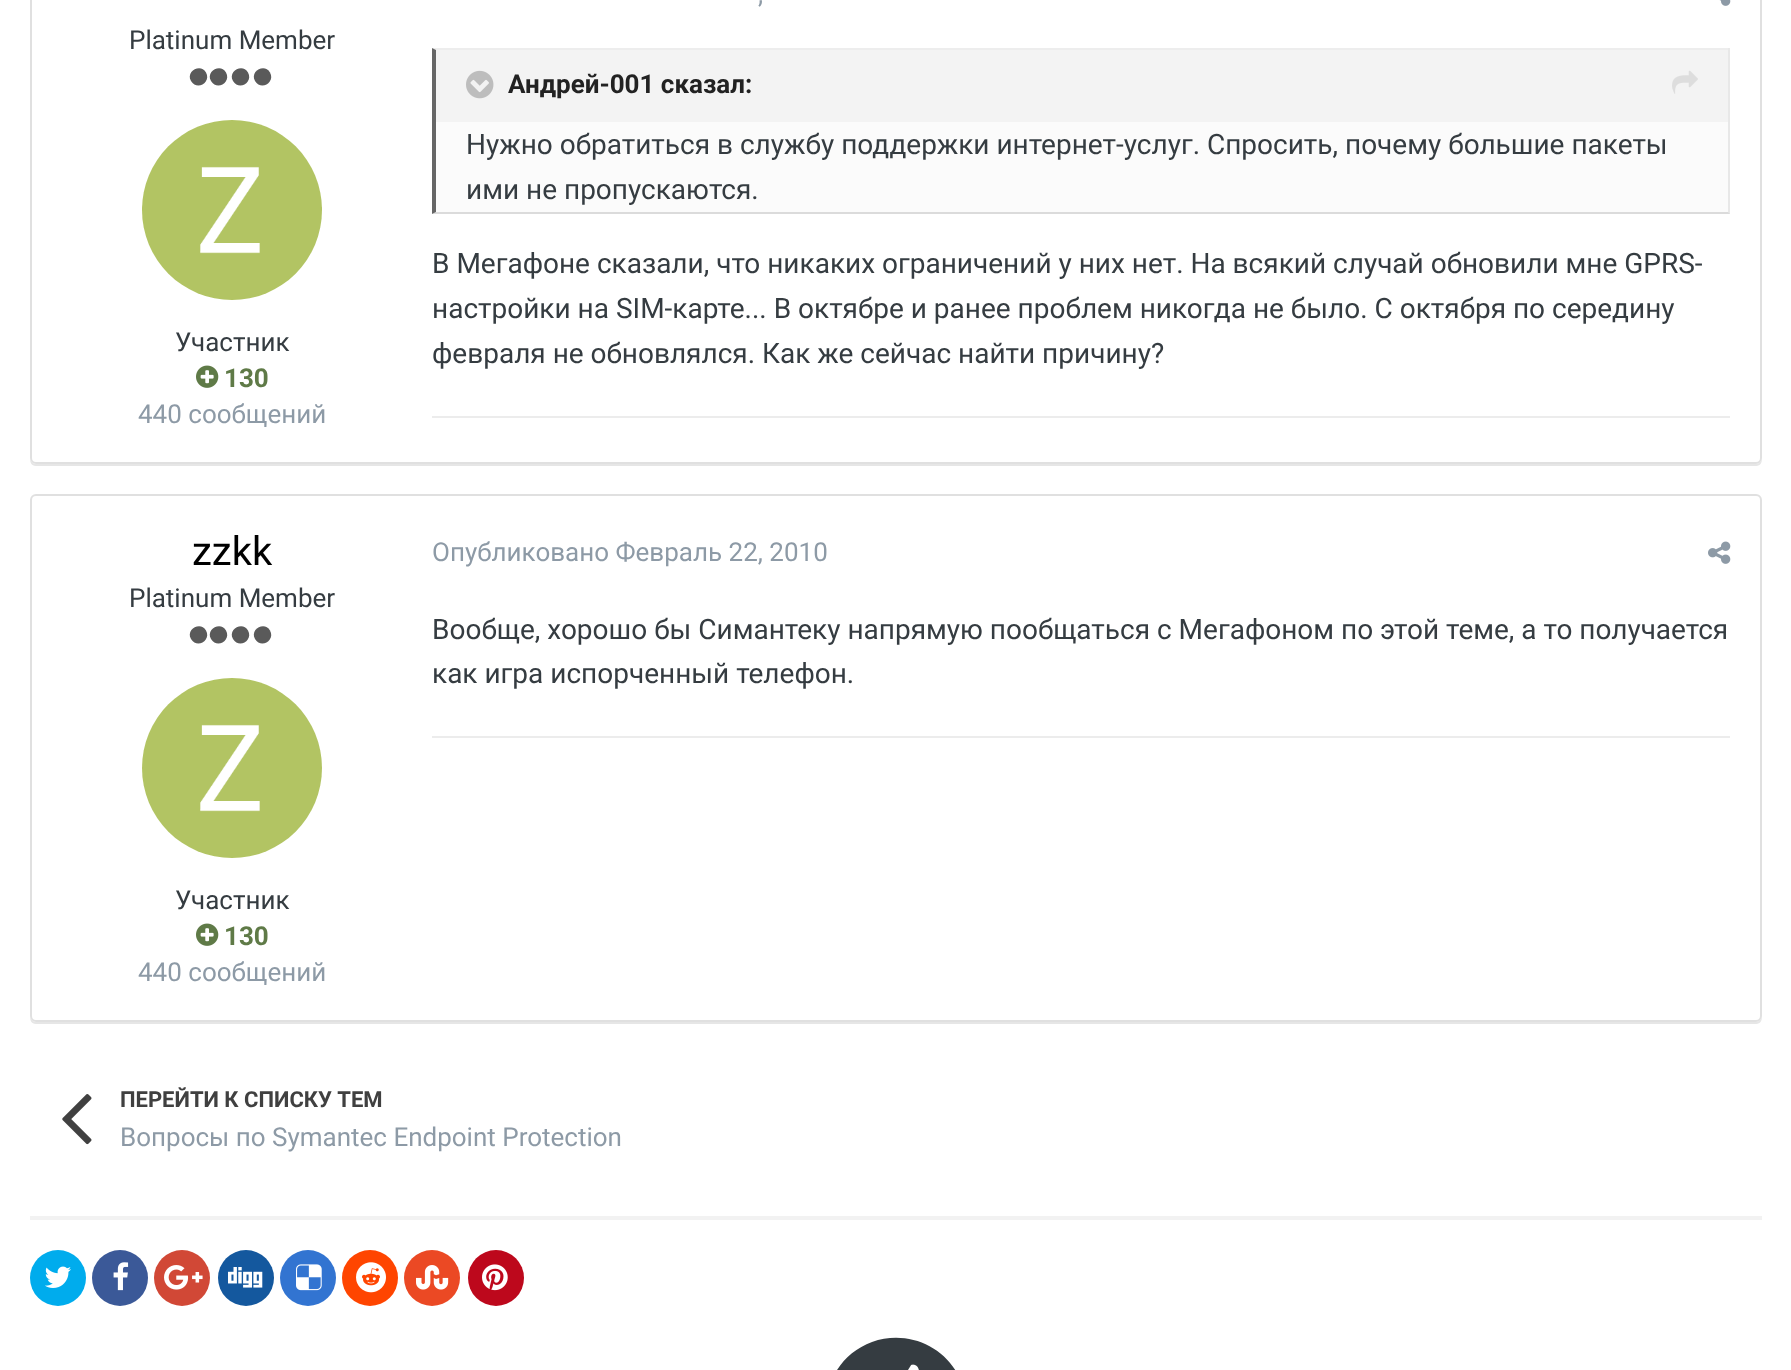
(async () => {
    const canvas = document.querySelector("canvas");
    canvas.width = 1791;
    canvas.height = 1370;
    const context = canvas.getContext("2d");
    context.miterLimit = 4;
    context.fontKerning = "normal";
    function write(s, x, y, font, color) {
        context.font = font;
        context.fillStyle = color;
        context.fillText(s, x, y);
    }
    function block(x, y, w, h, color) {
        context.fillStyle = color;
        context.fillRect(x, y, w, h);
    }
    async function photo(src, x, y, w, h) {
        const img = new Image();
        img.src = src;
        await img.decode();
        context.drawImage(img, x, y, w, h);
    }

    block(0, 0, 1791, 1370, "rgb(255, 255, 255)");
    context.fillStyle = "rgb(230, 230, 230)";
    context.beginPath();
    context.moveTo(30, 458);
    context.bezierCurveTo(30, 462, 31, 466, 36, 466);
    context.lineTo(1756, 466);
    context.bezierCurveTo(1761, 466, 1762, 462, 1762, 458);
    context.bezierCurveTo(1762, 461, 1759, 464, 1756, 464);
    context.lineTo(36, 464);
    context.bezierCurveTo(33, 464, 30, 461, 30, 458);
    context.closePath();
    context.fill();
    context.fillStyle = "rgb(255, 255, 255)";
    context.beginPath();
    context.roundRect(31, -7, 1730, 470, 5);
    context.fill();
    context.strokeStyle = "rgb(224, 224, 224)";
    context.lineWidth = 2;
    context.stroke();
    write("Platinum Member", 129, 49, "26px Roboto", "rgb(53, 60, 65)");
    context.fillStyle = "rgb(90, 90, 90)";
    context.beginPath();
    context.moveTo(206, 72.5);
    context.bezierCurveTo(211.5, 82.5, 197, 91, 191, 81);
    context.bezierCurveTo(185.5, 71.5, 200.5, 63, 206, 72.5);
    context.closePath();
    context.moveTo(226, 72.5);
    context.bezierCurveTo(231.5, 82.5, 217, 91, 211, 81);
    context.bezierCurveTo(205.5, 71.5, 220.5, 63, 226, 72.5);
    context.closePath();
    context.moveTo(248, 72.5);
    context.bezierCurveTo(253.5, 82.5, 239, 91, 233, 81);
    context.bezierCurveTo(227.5, 71.5, 242.5, 63, 248, 72.5);
    context.closePath();
    context.fill();
    context.beginPath();
    context.moveTo(270, 72.5);
    context.bezierCurveTo(275.5, 82.5, 261, 91, 255, 81);
    context.bezierCurveTo(249.5, 71.5, 264.5, 63, 270, 72.5);
    context.closePath();
    context.fill();
    await photo("media/1.png", 142, 120, 180, 180);
    write("Участник", 175, 351, "26px Roboto", "rgb(53, 60, 65)");
    await photo("media/2.png", 196, 365, 23, 23);
    write("130", 224, 387, "bold 26px Roboto", "rgb(95, 122, 71)");
    write("440 сообщений", 138, 423, "26px Roboto", "rgb(141, 154, 166)");
    write(",", 758, 3, "26px Roboto", "rgb(141, 154, 166)");
    await photo("media/3.png", 1719, 0, 12, 6);
    block(436, 122, 1292, 90, "rgb(251, 251, 251)");
    context.fillStyle = "rgb(237, 237, 237)";
    context.beginPath();
    context.moveTo(432, 48);
    context.lineTo(1730, 48);
    context.lineTo(1728, 50);
    context.lineTo(436, 50);
    context.closePath();
    context.fill();
    block(1728, 48, 2, 166, "rgb(232, 232, 232)");
    context.fillStyle = "rgb(219, 219, 219)";
    context.beginPath();
    context.moveTo(1730, 214);
    context.lineTo(432, 214);
    context.lineTo(436, 212);
    context.lineTo(1728, 212);
    context.closePath();
    context.fill();
    context.fillStyle = "rgb(102, 102, 102)";
    context.beginPath();
    context.moveTo(432, 214);
    context.lineTo(432, 48);
    context.lineTo(436, 50);
    context.lineTo(436, 212);
    context.closePath();
    context.fill();
    block(436, 50, 1292, 72, "rgb(243, 243, 243)");
    await photo("media/4.png", 466, 70, 28, 29);
    write("Андрей-001 сказал:", 508, 93, "bold 26px Roboto", "rgb(34, 34, 34)");
    await photo("media/5.png", 1672, 70, 26, 24);
    write("Нужно обратиться в службу поддержки интернет-услуг. Спросить, почему большие пакеты", 466, 154, "28px Roboto", "rgb(53, 60, 65)");
    write("ими не пропускаются.", 466, 199, "28px Roboto", "rgb(53, 60, 65)");
    write("В Мегафоне сказали, что никаких ограничений у них нет. На всякий случай обновили мне GPRS-", 432, 273, "28px Roboto", "rgb(53, 60, 65)");
    write("настройки на SIM-карте... В октябре и ранее проблем никогда не было. С октября по середину", 432, 318, "28px Roboto", "rgb(53, 60, 65)");
    write("февраля не обновлялся. Как же сейчас найти причину?", 432, 363, "28px Roboto", "rgb(53, 60, 65)");
    block(432, 416, 1298, 2, "rgb(236, 236, 236)");
    context.fillStyle = "rgb(230, 230, 230)";
    context.beginPath();
    context.moveTo(30, 1016);
    context.bezierCurveTo(30, 1020, 31, 1024, 36, 1024);
    context.lineTo(1756, 1024);
    context.bezierCurveTo(1761, 1024, 1762, 1020, 1762, 1016);
    context.bezierCurveTo(1762, 1019, 1759, 1022, 1756, 1022);
    context.lineTo(36, 1022);
    context.bezierCurveTo(33, 1022, 30, 1019, 30, 1016);
    context.closePath();
    context.fill();
    context.fillStyle = "rgb(255, 255, 255)";
    context.beginPath();
    context.roundRect(31, 495, 1730, 526, 5);
    context.fill();
    context.stroke();
    write("zzkk", 192, 565, "40px Roboto", "rgb(0, 0, 0)");
    write("Platinum Member", 129, 607, "26px Roboto", "rgb(53, 60, 65)");
    context.fillStyle = "rgb(90, 90, 90)";
    context.beginPath();
    context.moveTo(206, 630.5);
    context.bezierCurveTo(211.5, 640.5, 197, 649, 191, 639);
    context.bezierCurveTo(185.5, 629.5, 200.5, 621, 206, 630.5);
    context.closePath();
    context.moveTo(226, 630.5);
    context.bezierCurveTo(231.5, 640.5, 217, 649, 211, 639);
    context.bezierCurveTo(205.5, 629.5, 220.5, 621, 226, 630.5);
    context.closePath();
    context.moveTo(248, 630.5);
    context.bezierCurveTo(253.5, 640.5, 239, 649, 233, 639);
    context.bezierCurveTo(227.5, 629.5, 242.5, 621, 248, 630.5);
    context.closePath();
    context.fill();
    context.beginPath();
    context.moveTo(270, 630.5);
    context.bezierCurveTo(275.5, 640.5, 261, 649, 255, 639);
    context.bezierCurveTo(249.5, 629.5, 264.5, 621, 270, 630.5);
    context.closePath();
    context.fill();
    await photo("media/6.png", 142, 678, 180, 180);
    write("Участник", 175, 909, "26px Roboto", "rgb(53, 60, 65)");
    await photo("media/2.png", 196, 923, 23, 23);
    write("130", 224, 945, "bold 26px Roboto", "rgb(95, 122, 71)");
    write("440 сообщений", 138, 981, "26px Roboto", "rgb(141, 154, 166)");
    write("Опубликовано Февраль 22, 2010", 432, 561, "26px Roboto", "rgb(141, 154, 166)");
    await photo("media/7.png", 1708, 541, 23, 23);
    write("Вообще, хорошо бы Симантеку напрямую пообщаться с Мегафоном по этой теме, а то получается", 432, 639, "28px Roboto", "rgb(53, 60, 65)");
    write("как игра испорченный телефон.", 432, 683, "28px Roboto", "rgb(53, 60, 65)");
    block(432, 736, 1298, 2, "rgb(236, 236, 236)");
    await photo("media/8.png", 62, 1094, 30, 51);
    write("ПЕРЕЙТИ К СПИСКУ ТЕМ", 120, 1107, "bold 22px Roboto", "rgb(64, 64, 64)");
    write("Вопросы по Symantec Endpoint Protection", 120, 1146, "26px Roboto", "rgb(141, 154, 166)");
    block(30, 1216, 1732, 4, "rgb(242, 242, 242)");
    context.fillStyle = "rgb(0, 172, 237)";
    context.beginPath();
    context.arc(58, 1278, 28, 0, Math.PI * 2);
    context.fill();
    await photo("media/9.png", 45, 1266, 26, 22);
    context.fillStyle = "rgb(59, 89, 152)";
    context.beginPath();
    context.arc(120, 1278, 28, 0, Math.PI * 2);
    context.fill();
    await photo("media/10.png", 113, 1262, 16, 29);
    context.fillStyle = "rgb(209, 72, 54)";
    context.beginPath();
    context.arc(182, 1278, 28, 0, Math.PI * 2);
    context.fill();
    await photo("media/11.png", 164, 1265, 39, 25);
    context.fillStyle = "rgb(20, 88, 158)";
    context.beginPath();
    context.arc(246, 1278, 28, 0, Math.PI * 2);
    context.fill();
    await photo("media/12.png", 228, 1267, 35, 21);
    context.fillStyle = "rgb(50, 116, 209)";
    context.beginPath();
    context.arc(308, 1278, 28, 0, Math.PI * 2);
    context.fill();
    await photo("media/13.png", 296, 1264, 26, 27);
    context.fillStyle = "rgb(255, 69, 0)";
    context.beginPath();
    context.arc(370, 1278, 28, 0, Math.PI * 2);
    context.fill();
    await photo("media/14.png", 356, 1262, 30, 31);
    context.fillStyle = "rgb(235, 73, 36)";
    context.beginPath();
    context.arc(432, 1278, 28, 0, Math.PI * 2);
    context.fill();
    await photo("media/15.png", 416, 1265, 33, 25);
    context.fillStyle = "rgb(189, 8, 28)";
    context.beginPath();
    context.arc(496, 1278, 28, 0, Math.PI * 2);
    context.fill();
    await photo("media/16.png", 482, 1264, 26, 27);
    context.fillStyle = "rgb(53, 60, 65)";
    context.beginPath();
    context.moveTo(872, 1342);
    context.bezierCurveTo(908, 1329, 949, 1347, 962, 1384);
    context.bezierCurveTo(975, 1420, 956, 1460, 920, 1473);
    context.bezierCurveTo(884, 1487, 843, 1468, 830, 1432);
    context.bezierCurveTo(817, 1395, 836, 1355, 872, 1342);
    context.closePath();
    context.fill();
    await photo("media/17.png", 908, 1364, 11, 6);
})();
